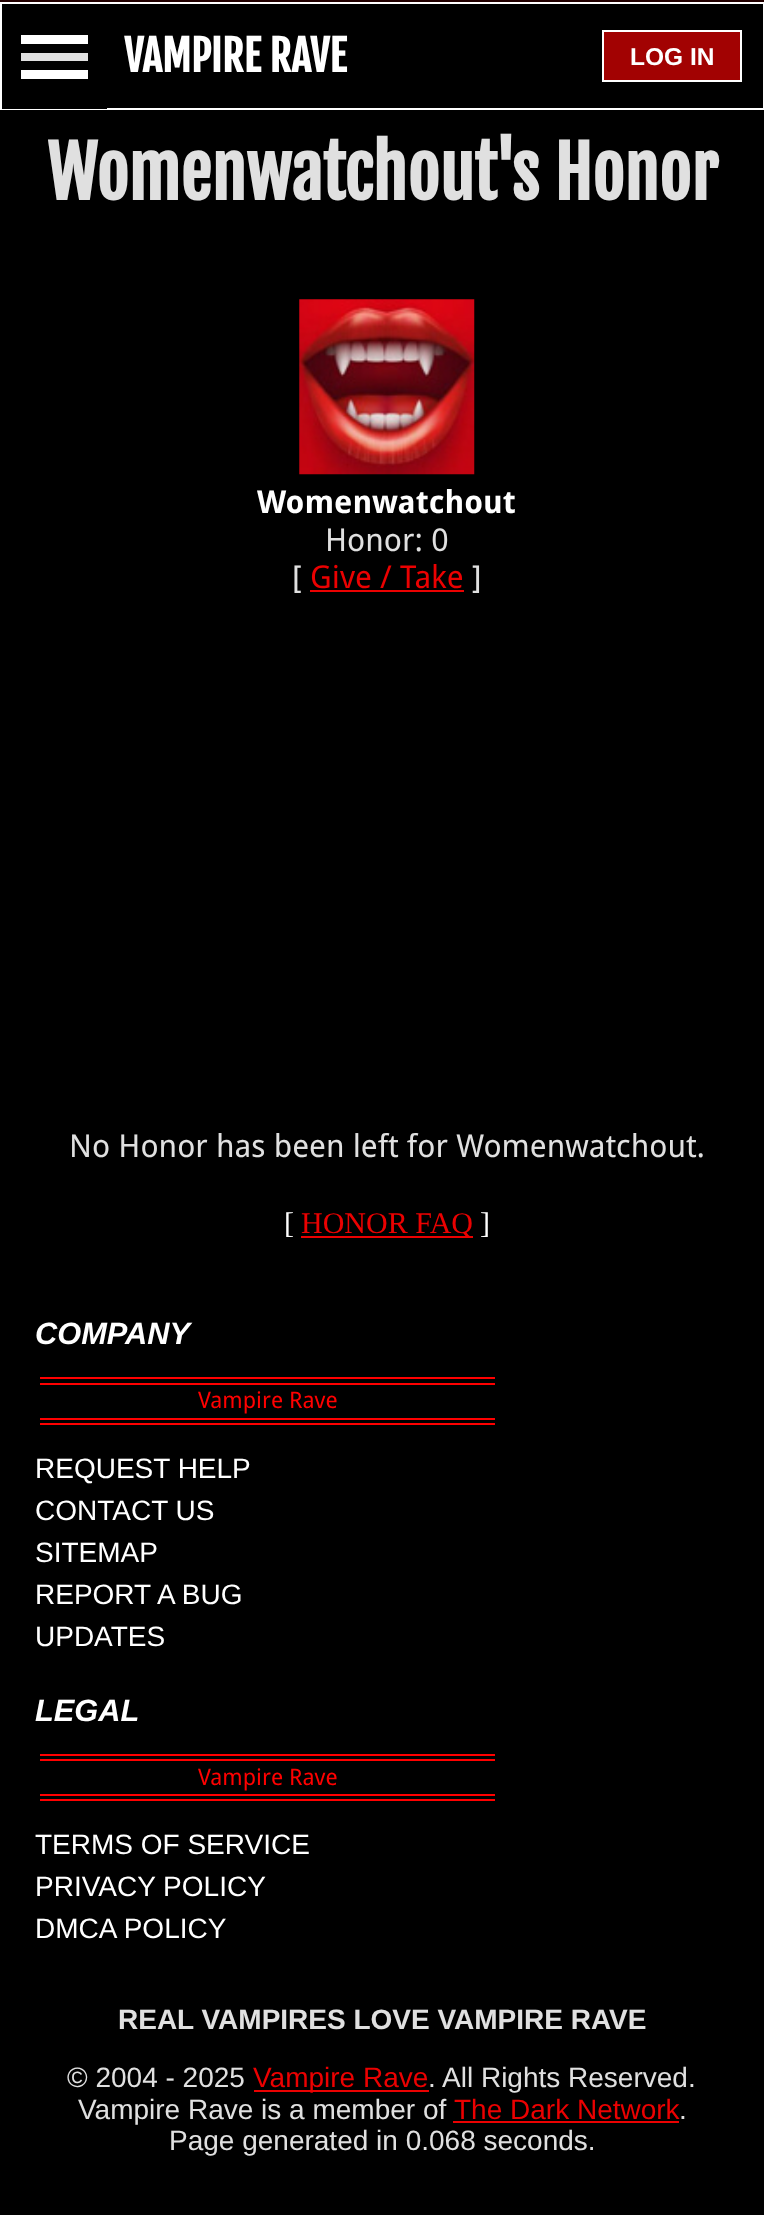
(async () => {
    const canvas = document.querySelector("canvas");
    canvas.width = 764;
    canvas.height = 2215;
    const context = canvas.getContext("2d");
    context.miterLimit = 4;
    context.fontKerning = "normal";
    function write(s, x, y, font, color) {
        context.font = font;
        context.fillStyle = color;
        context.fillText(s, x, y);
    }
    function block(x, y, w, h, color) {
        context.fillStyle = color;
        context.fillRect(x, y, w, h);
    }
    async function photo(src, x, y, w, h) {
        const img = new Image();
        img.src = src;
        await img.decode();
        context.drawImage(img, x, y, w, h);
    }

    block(0, 0, 764, 2215, "rgb(35, 0, 0)");
    block(0, 4, 764, 2211, "rgb(0, 0, 0)");
    context.strokeStyle = "rgb(255, 255, 255)";
    context.lineWidth = 2;
    context.strokeRect(1, 3, 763, 106);
    block(2, 108, 105, 1, "rgb(0, 0, 0)");
    block(21, 53, 67, 8, "rgb(224, 224, 224)");
    block(21, 35, 67, 9, "rgb(255, 255, 255)");
    block(21, 70, 67, 9, "rgb(255, 255, 255)");
    write("VAMPIRE RAVE", 124, 72, "bold 42px Fjalla One", "rgb(255, 255, 255)");
    context.fillStyle = "rgb(162, 2, 2)";
    context.beginPath();
    context.rect(603, 31, 138, 50);
    context.fill();
    context.stroke();
    write("LOG IN", 630, 65, "bold 24.5px Liberation Sans", "rgb(255, 255, 255)");
    write("Womenwatchout's Honor", 47, 200, "bold 70px Fjalla One", "rgb(224, 224, 224)");
    await photo("media/1.png", 299, 299, 176, 176);
    write("Womenwatchout", 257, 513, "bold 31.5px Droid Sans", "rgb(255, 255, 255)");
    write("Honor: 0", 325, 551, "31.5px Droid Sans", "rgb(224, 224, 224)");
    write("[", 292, 588, "31.5px Droid Sans", "rgb(224, 224, 224)");
    write("Give / Take", 310, 588, "31.5px Droid Sans", "rgb(235, 1, 1)");
    block(310, 590, 154, 2, "rgb(235, 1, 1)");
    write("]", 472, 588, "31.5px Droid Sans", "rgb(224, 224, 224)");
    write("No Honor has been left for Womenwatchout.", 69, 1157, "31.5px Droid Sans", "rgb(224, 224, 224)");
    write("[", 284, 1233, "30px Liberation Serif", "rgb(255, 255, 255)");
    block(301, 1236, 172, 2, "rgb(235, 1, 1)");
    write("HONOR FAQ", 301, 1233, "30px Liberation Serif", "rgb(235, 1, 1)");
    write("]", 480, 1233, "30px Liberation Serif", "rgb(255, 255, 255)");
    write("COMPANY", 35, 1344, "italic bold 30.75px Liberation Sans", "rgb(255, 255, 255)");
    block(40, 1377, 455, 2, "rgb(255, 0, 0)");
    block(40, 1383, 455, 2, "rgb(255, 0, 0)");
    block(40, 1418, 455, 2, "rgb(255, 0, 0)");
    block(40, 1423, 455, 2, "rgb(255, 0, 0)");
    write("Vampire Rave", 198, 1408, "22.75px Droid Sans", "rgb(255, 0, 0)");
    write("REQUEST HELP", 35, 1478, "28px Liberation Sans", "rgb(255, 255, 255)");
    write("CONTACT US", 35, 1520, "28px Liberation Sans", "rgb(255, 255, 255)");
    write("SITEMAP", 35, 1562, "28px Liberation Sans", "rgb(255, 255, 255)");
    write("REPORT A BUG", 35, 1604, "28px Liberation Sans", "rgb(255, 255, 255)");
    write("UPDATES", 35, 1646, "28px Liberation Sans", "rgb(255, 255, 255)");
    write("LEGAL", 35, 1721, "italic bold 30.75px Liberation Sans", "rgb(255, 255, 255)");
    block(40, 1754, 455, 2, "rgb(255, 0, 0)");
    block(40, 1759, 455, 2, "rgb(255, 0, 0)");
    block(40, 1794, 455, 2, "rgb(255, 0, 0)");
    block(40, 1799, 455, 2, "rgb(255, 0, 0)");
    write("Vampire Rave", 198, 1785, "22.75px Droid Sans", "rgb(255, 0, 0)");
    write("TERMS OF SERVICE", 35, 1854, "28px Liberation Sans", "rgb(255, 255, 255)");
    write("PRIVACY POLICY", 35, 1896, "28px Liberation Sans", "rgb(255, 255, 255)");
    write("DMCA POLICY", 35, 1938, "28px Liberation Sans", "rgb(255, 255, 255)");
    write("REAL VAMPIRES LOVE VAMPIRE RAVE", 118, 2029, "bold 28px Liberation Sans", "rgb(224, 224, 224)");
    write("© 2004 - 2025", 67, 2087, "28px Liberation Sans", "rgb(224, 224, 224)");
    block(254, 2090, 175, 2, "rgb(235, 1, 1)");
    write("Vampire Rave", 253, 2087, "28px Liberation Sans", "rgb(235, 1, 1)");
    write(". All Rights Reserved.", 428, 2087, "28px Liberation Sans", "rgb(224, 224, 224)");
    write("Vampire Rave is a member of", 78, 2119, "28px Liberation Sans", "rgb(224, 224, 224)");
    write("The Dark Network", 454, 2119, "28px Liberation Sans", "rgb(235, 1, 1)");
    block(453, 2121, 226, 2, "rgb(235, 1, 1)");
    write(".", 679, 2119, "28px Liberation Sans", "rgb(224, 224, 224)");
    write("Page generated in 0.068 seconds.", 169, 2150, "28px Liberation Sans", "rgb(224, 224, 224)");
})();
